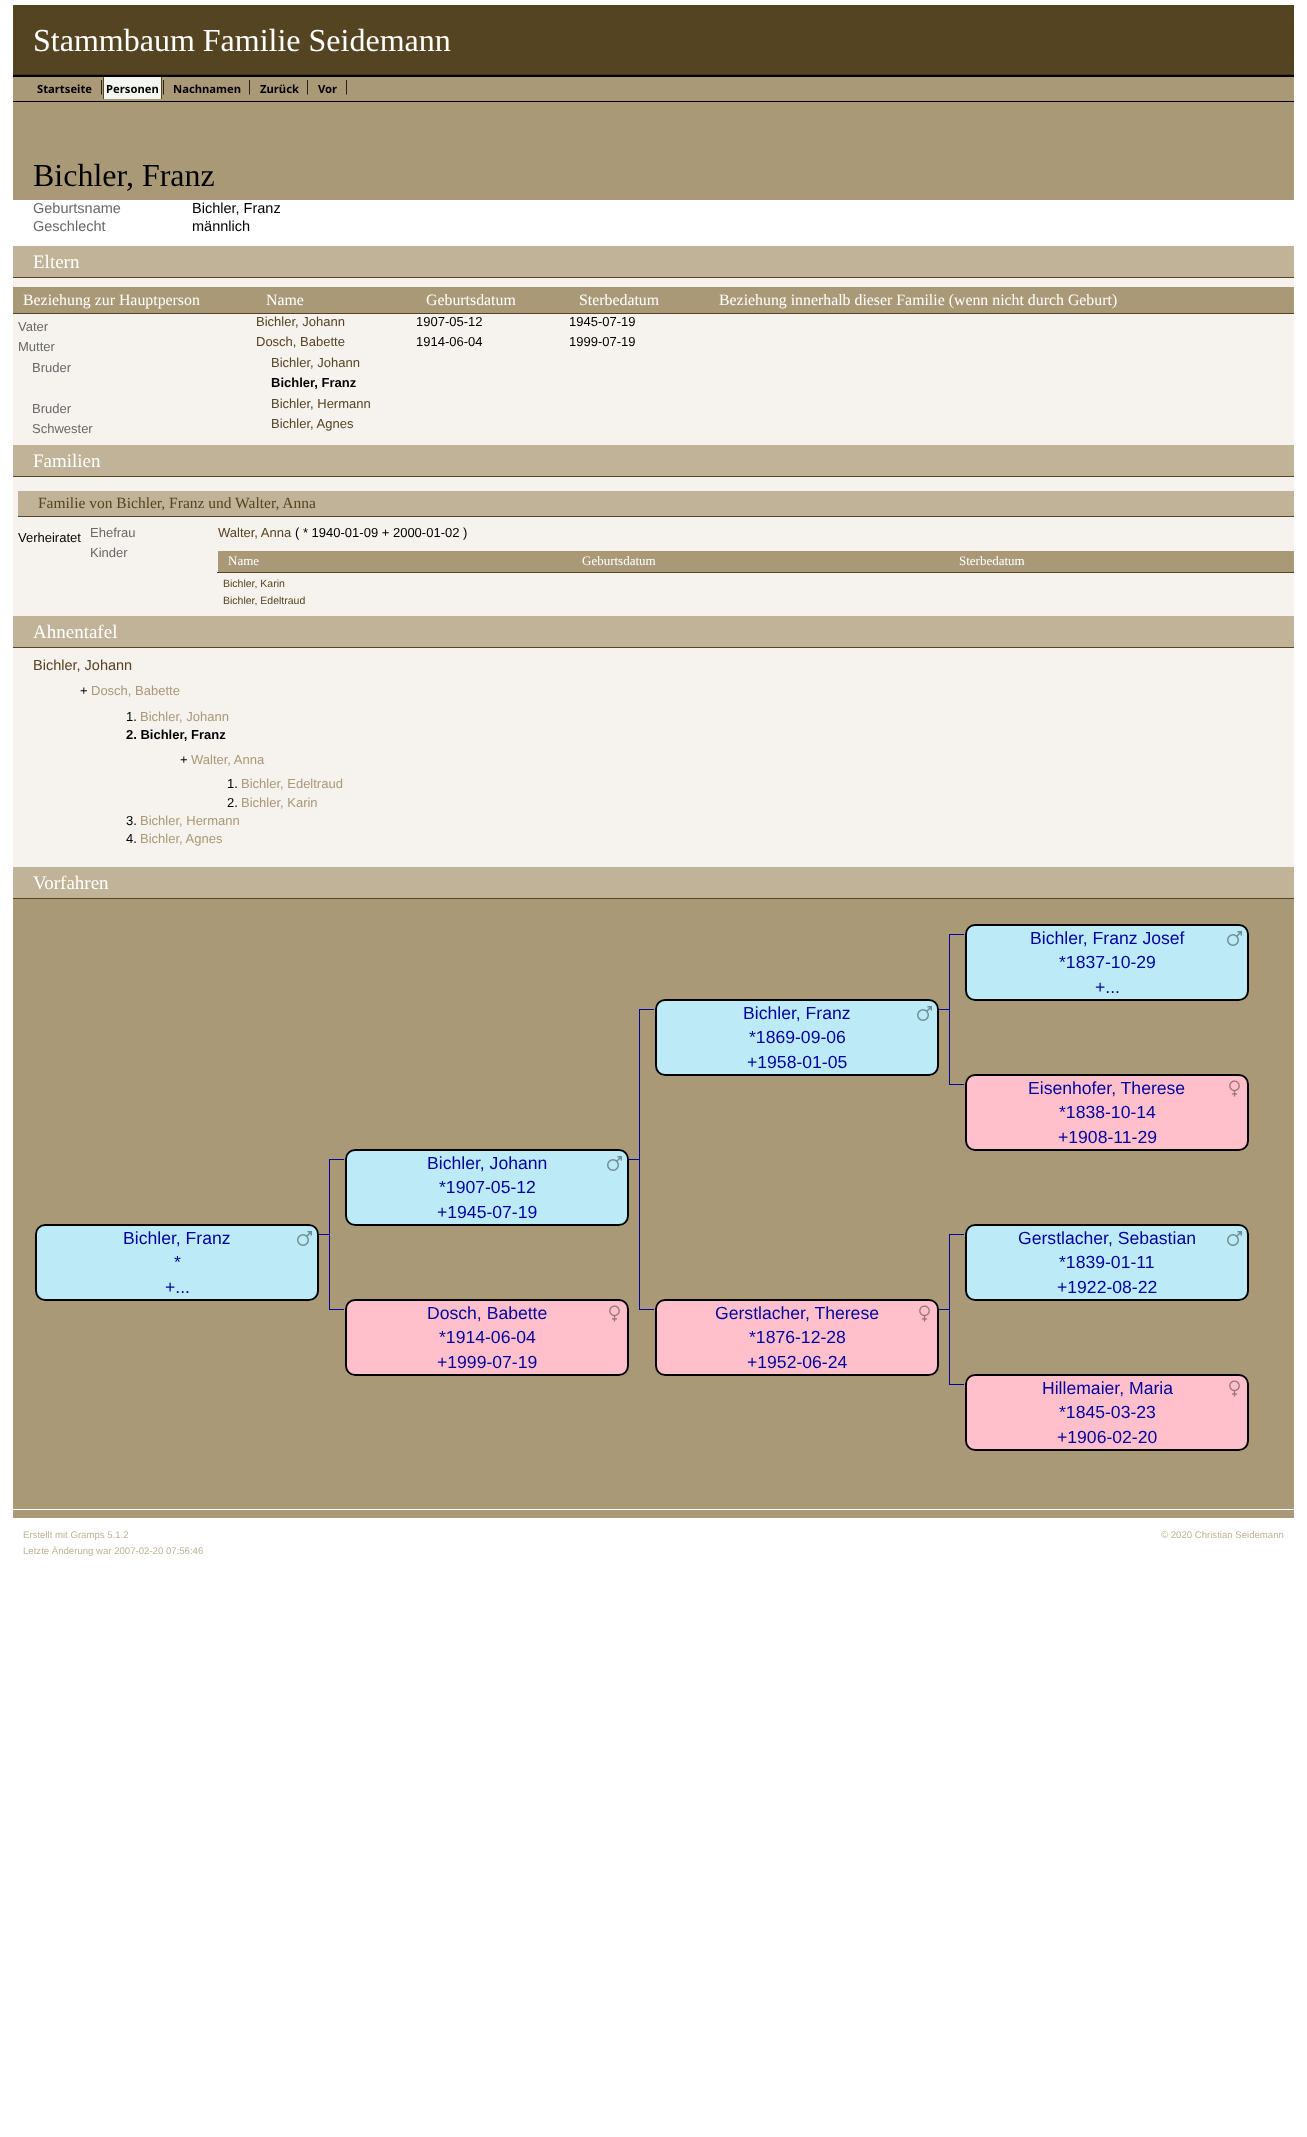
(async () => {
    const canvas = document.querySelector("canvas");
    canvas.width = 1307;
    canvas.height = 2137;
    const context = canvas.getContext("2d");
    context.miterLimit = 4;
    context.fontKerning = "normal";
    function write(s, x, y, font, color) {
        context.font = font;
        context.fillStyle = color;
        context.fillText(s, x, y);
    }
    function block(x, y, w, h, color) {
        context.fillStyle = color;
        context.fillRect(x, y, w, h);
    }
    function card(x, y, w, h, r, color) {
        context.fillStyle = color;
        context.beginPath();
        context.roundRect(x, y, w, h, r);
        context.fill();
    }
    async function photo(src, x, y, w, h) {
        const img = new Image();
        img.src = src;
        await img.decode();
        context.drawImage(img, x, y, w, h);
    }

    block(0, 0, 1307, 2137, "rgb(255, 255, 255)");
    block(13, 5, 1281, 69, "rgb(85, 68, 34)");
    block(13, 74, 1281, 1, "rgb(69, 54, 25)");
    write("Stammbaum Familie Seidemann", 33, 51, "32px Liberation Serif", "rgb(255, 255, 255)");
    block(13, 77, 1281, 24, "rgb(170, 153, 119)");
    block(13, 75, 1281, 2, "rgb(0, 0, 0)");
    block(13, 101, 1281, 1, "rgb(0, 0, 0)");
    write("Startseite", 37, 93, "bold 11.25px Noto Sans", "rgb(0, 0, 0)");
    write("|", 100, 91, "16px Liberation Serif", "rgb(0, 0, 0)");
    block(104, 77, 57, 22, "rgb(242, 246, 238)");
    block(161, 77, 1, 22, "rgb(85, 68, 34)");
    block(103, 77, 1, 22, "rgb(85, 68, 34)");
    write("Personen", 106, 93, "bold 11.25px Noto Sans", "rgb(0, 0, 0)");
    write("|", 162, 91, "16px Liberation Serif", "rgb(0, 0, 0)");
    write("Nachnamen", 173, 93, "bold 11.25px Noto Sans", "rgb(0, 0, 0)");
    write("|", 248, 91, "16px Liberation Serif", "rgb(0, 0, 0)");
    write("Zurück", 260, 93, "bold 11.25px Noto Sans", "rgb(0, 0, 0)");
    write("|", 306, 91, "16px Liberation Serif", "rgb(0, 0, 0)");
    write("Vor", 318, 93, "bold 11.25px Noto Sans", "rgb(0, 0, 0)");
    write("|", 345, 91, "16px Liberation Serif", "rgb(0, 0, 0)");
    block(13, 102, 1281, 1407, "rgb(170, 153, 119)");
    write("Bichler, Franz", 33, 186, "32px Liberation Serif", "rgb(0, 0, 0)");
    block(13, 200, 1281, 46, "rgb(255, 255, 255)");
    write("Geburtsname", 33, 213, "14.5px Liberation Sans", "rgb(105, 105, 105)");
    write("Bichler, Franz", 192, 213, "14.5px Liberation Sans", "rgb(0, 0, 0)");
    write("Geschlecht", 33, 231, "14.5px Liberation Sans", "rgb(105, 105, 105)");
    write("männlich", 192, 231, "14.5px Liberation Sans", "rgb(0, 0, 0)");
    block(13, 278, 1281, 167, "rgb(246, 242, 238)");
    block(13, 246, 1281, 31, "rgb(193, 179, 152)");
    block(13, 277, 1281, 1, "rgb(85, 68, 34)");
    write("Eltern", 33, 268, "19px Liberation Serif", "rgb(255, 255, 255)");
    block(13, 287, 1281, 26, "rgb(170, 153, 119)");
    write("Beziehung zur Hauptperson", 23, 305, "15.85px Liberation Serif", "rgb(255, 255, 255)");
    write("Name", 266, 305, "15.85px Liberation Serif", "rgb(255, 255, 255)");
    write("Geburtsdatum", 426, 305, "15.85px Liberation Serif", "rgb(255, 255, 255)");
    write("Sterbedatum", 579, 305, "15.85px Liberation Serif", "rgb(255, 255, 255)");
    block(13, 313, 1281, 1, "rgb(85, 68, 34)");
    write("Beziehung innerhalb dieser Familie (wenn nicht durch Geburt)", 719, 305, "15.85px Liberation Serif", "rgb(255, 255, 255)");
    write("Vater", 18, 331, "13px Liberation Sans", "rgb(105, 105, 105)");
    write("Bichler, Johann", 256, 326, "13px Liberation Sans", "rgb(85, 68, 34)");
    write("1907-05-12", 416, 326, "13px Liberation Sans", "rgb(0, 0, 0)");
    write("1945-07-19", 569, 326, "13px Liberation Sans", "rgb(0, 0, 0)");
    write("Mutter", 18, 351, "13px Liberation Sans", "rgb(105, 105, 105)");
    write("Dosch, Babette", 256, 346, "13px Liberation Sans", "rgb(85, 68, 34)");
    write("1914-06-04", 416, 346, "13px Liberation Sans", "rgb(0, 0, 0)");
    write("1999-07-19", 569, 346, "13px Liberation Sans", "rgb(0, 0, 0)");
    write("Bruder", 32, 372, "13px Liberation Sans", "rgb(105, 105, 105)");
    write("Bichler, Johann", 271, 367, "13px Liberation Sans", "rgb(85, 68, 34)");
    write("Bichler, Franz", 271, 387, "bold 13px Liberation Sans", "rgb(0, 0, 0)");
    write("Bruder", 32, 413, "13px Liberation Sans", "rgb(105, 105, 105)");
    write("Bichler, Hermann", 271, 408, "13px Liberation Sans", "rgb(85, 68, 34)");
    write("Schwester", 32, 433, "13px Liberation Sans", "rgb(105, 105, 105)");
    write("Bichler, Agnes", 271, 428, "13px Liberation Sans", "rgb(85, 68, 34)");
    block(13, 477, 1281, 139, "rgb(246, 242, 238)");
    block(13, 445, 1281, 31, "rgb(193, 179, 152)");
    block(13, 476, 1281, 1, "rgb(85, 68, 34)");
    write("Familien", 33, 467, "19px Liberation Serif", "rgb(255, 255, 255)");
    block(18, 491, 1276, 25, "rgb(193, 179, 152)");
    block(18, 516, 1276, 1, "rgb(85, 68, 34)");
    write("Familie von Bichler, Franz und Walter, Anna", 38, 508, "15.5px Liberation Serif", "rgb(85, 68, 34)");
    write("Verheiratet", 18, 542, "13px Liberation Sans", "rgb(0, 0, 0)");
    write("Ehefrau", 90, 537, "13px Liberation Sans", "rgb(105, 105, 105)");
    write("Walter, Anna", 218, 537, "13px Liberation Sans", "rgb(85, 68, 34)");
    write("( * 1940-01-09 + 2000-01-02 )", 295, 537, "13px Liberation Sans", "rgb(0, 0, 0)");
    write("Kinder", 90, 557, "13px Liberation Sans", "rgb(105, 105, 105)");
    block(218, 551, 1076, 21, "rgb(170, 153, 119)");
    write("Name", 228, 565, "13px Liberation Serif", "rgb(255, 255, 255)");
    write("Geburtsdatum", 582, 565, "13px Liberation Serif", "rgb(255, 255, 255)");
    block(217, 572, 1077, 1, "rgb(85, 68, 34)");
    write("Sterbedatum", 959, 565, "13px Liberation Serif", "rgb(255, 255, 255)");
    write("Bichler, Karin", 223, 587, "10.5px Liberation Sans", "rgb(85, 68, 34)");
    write("Bichler, Edeltraud", 223, 604, "10.5px Liberation Sans", "rgb(85, 68, 34)");
    block(13, 648, 1281, 219, "rgb(246, 242, 238)");
    block(13, 616, 1281, 31, "rgb(193, 179, 152)");
    block(13, 647, 1281, 1, "rgb(85, 68, 34)");
    write("Ahnentafel", 33, 638, "19px Liberation Serif", "rgb(255, 255, 255)");
    write("Bichler, Johann", 33, 670, "14.5px Liberation Sans", "rgb(85, 68, 34)");
    write("+", 80, 695, "13px Liberation Sans", "rgb(0, 0, 0)");
    write("Dosch, Babette", 91, 695, "13px Liberation Sans", "rgb(170, 153, 119)");
    write("1.", 126, 721, "13px Liberation Sans", "rgb(0, 0, 0)");
    write("Bichler, Johann", 140, 721, "13px Liberation Sans", "rgb(170, 153, 119)");
    write("2. Bichler, Franz", 126, 739, "bold 13px Liberation Sans", "rgb(0, 0, 0)");
    write("+", 180, 764, "13px Liberation Sans", "rgb(0, 0, 0)");
    write("Walter, Anna", 191, 764, "13px Liberation Sans", "rgb(170, 153, 119)");
    write("1.", 227, 788, "13px Liberation Sans", "rgb(0, 0, 0)");
    write("Bichler, Edeltraud", 241, 788, "13px Liberation Sans", "rgb(170, 153, 119)");
    write("2.", 227, 807, "13px Liberation Sans", "rgb(0, 0, 0)");
    write("Bichler, Karin", 241, 807, "13px Liberation Sans", "rgb(170, 153, 119)");
    write("3.", 126, 825, "13px Liberation Sans", "rgb(0, 0, 0)");
    write("Bichler, Hermann", 140, 825, "13px Liberation Sans", "rgb(170, 153, 119)");
    write("4.", 126, 843, "13px Liberation Sans", "rgb(0, 0, 0)");
    write("Bichler, Agnes", 140, 843, "13px Liberation Sans", "rgb(170, 153, 119)");
    block(13, 867, 1281, 31, "rgb(193, 179, 152)");
    block(13, 898, 1281, 1, "rgb(85, 68, 34)");
    write("Vorfahren", 33, 889, "19px Liberation Serif", "rgb(255, 255, 255)");
    block(949, 934, 15, 1, "rgb(0, 2, 157)");
    card(965, 924, 284, 77, 10, "rgb(188, 234, 246)");
    await photo("media/1.png", 1227, 931, 15, 15);
    context.beginPath();
    context.roundRect(966, 925, 282, 75, 9);
    context.strokeStyle = "rgb(0, 0, 0)";
    context.lineWidth = 2;
    context.stroke();
    write("Bichler, Franz Josef", 1030, 944, "17.6px Liberation Sans", "rgb(0, 2, 157)");
    write("*1837-10-29", 1059, 968, "17.6px Liberation Sans", "rgb(0, 2, 157)");
    write("+...", 1095, 993, "17.6px Liberation Sans", "rgb(0, 2, 157)");
    block(949, 934, 1, 76, "rgb(0, 2, 157)");
    block(639, 1009, 15, 1, "rgb(0, 2, 157)");
    block(934, 1009, 15, 1, "rgb(0, 2, 157)");
    card(655, 999, 284, 77, 10, "rgb(188, 234, 246)");
    await photo("media/1.png", 917, 1006, 15, 15);
    context.beginPath();
    context.roundRect(656, 1000, 282, 75, 9);
    context.stroke();
    write("Bichler, Franz", 743, 1019, "17.6px Liberation Sans", "rgb(0, 2, 157)");
    write("*1869-09-06", 749, 1043, "17.6px Liberation Sans", "rgb(0, 2, 157)");
    write("+1958-01-05", 747, 1068, "17.6px Liberation Sans", "rgb(0, 2, 157)");
    block(639, 1009, 1, 151, "rgb(0, 2, 157)");
    block(949, 1084, 15, 1, "rgb(0, 2, 157)");
    block(949, 1009, 1, 76, "rgb(0, 2, 157)");
    card(965, 1074, 284, 77, 10, "rgb(255, 192, 203)");
    await photo("media/2.png", 1229, 1080, 11, 17);
    context.beginPath();
    context.roundRect(966, 1075, 282, 75, 9);
    context.stroke();
    write("Eisenhofer, Therese", 1028, 1094, "17.6px Liberation Sans", "rgb(0, 2, 157)");
    write("*1838-10-14", 1059, 1118, "17.6px Liberation Sans", "rgb(0, 2, 157)");
    write("+1908-11-29", 1058, 1143, "17.6px Liberation Sans", "rgb(0, 2, 157)");
    block(329, 1159, 15, 1, "rgb(0, 2, 157)");
    block(624, 1159, 15, 1, "rgb(0, 2, 157)");
    card(345, 1149, 284, 77, 10, "rgb(188, 234, 246)");
    await photo("media/1.png", 607, 1156, 15, 15);
    context.beginPath();
    context.roundRect(346, 1150, 282, 75, 9);
    context.stroke();
    write("Bichler, Johann", 427, 1169, "17.6px Liberation Sans", "rgb(0, 2, 157)");
    write("*1907-05-12", 439, 1193, "17.6px Liberation Sans", "rgb(0, 2, 157)");
    write("+1945-07-19", 437, 1218, "17.6px Liberation Sans", "rgb(0, 2, 157)");
    block(314, 1234, 15, 1, "rgb(0, 2, 157)");
    card(35, 1224, 284, 77, 10, "rgb(188, 234, 246)");
    await photo("media/1.png", 297, 1231, 15, 15);
    context.beginPath();
    context.roundRect(36, 1225, 282, 75, 9);
    context.stroke();
    write("Bichler, Franz", 123, 1244, "17.6px Liberation Sans", "rgb(0, 2, 157)");
    write("*", 174, 1268, "17.6px Liberation Sans", "rgb(0, 2, 157)");
    write("+...", 165, 1293, "17.6px Liberation Sans", "rgb(0, 2, 157)");
    block(329, 1159, 1, 76, "rgb(0, 2, 157)");
    block(639, 1309, 15, 1, "rgb(0, 2, 157)");
    block(639, 1159, 1, 151, "rgb(0, 2, 157)");
    card(965, 1224, 284, 77, 10, "rgb(188, 234, 246)");
    await photo("media/1.png", 1227, 1231, 15, 15);
    context.beginPath();
    context.roundRect(966, 1225, 282, 75, 9);
    context.stroke();
    write("Gerstlacher, Sebastian", 1018, 1244, "17.6px Liberation Sans", "rgb(0, 2, 157)");
    write("*1839-01-11", 1059, 1268, "17.6px Liberation Sans", "rgb(0, 2, 157)");
    write("+1922-08-22", 1057, 1293, "17.6px Liberation Sans", "rgb(0, 2, 157)");
    block(329, 1309, 15, 1, "rgb(0, 2, 157)");
    block(329, 1234, 1, 76, "rgb(0, 2, 157)");
    block(949, 1234, 15, 1, "rgb(0, 2, 157)");
    block(949, 1234, 1, 76, "rgb(0, 2, 157)");
    card(345, 1299, 284, 77, 10, "rgb(255, 192, 203)");
    await photo("media/2.png", 609, 1305, 11, 17);
    context.beginPath();
    context.roundRect(346, 1300, 282, 75, 9);
    context.stroke();
    write("Dosch, Babette", 427, 1319, "17.6px Liberation Sans", "rgb(0, 2, 157)");
    write("*1914-06-04", 439, 1343, "17.6px Liberation Sans", "rgb(0, 2, 157)");
    write("+1999-07-19", 437, 1368, "17.6px Liberation Sans", "rgb(0, 2, 157)");
    block(934, 1309, 15, 1, "rgb(0, 2, 157)");
    card(655, 1299, 284, 77, 10, "rgb(255, 192, 203)");
    await photo("media/2.png", 919, 1305, 11, 17);
    context.beginPath();
    context.roundRect(656, 1300, 282, 75, 9);
    context.stroke();
    write("Gerstlacher, Therese", 715, 1319, "17.6px Liberation Sans", "rgb(0, 2, 157)");
    write("*1876-12-28", 749, 1343, "17.6px Liberation Sans", "rgb(0, 2, 157)");
    write("+1952-06-24", 747, 1368, "17.6px Liberation Sans", "rgb(0, 2, 157)");
    block(949, 1384, 15, 1, "rgb(0, 2, 157)");
    block(949, 1309, 1, 76, "rgb(0, 2, 157)");
    card(965, 1374, 284, 77, 10, "rgb(255, 192, 203)");
    await photo("media/2.png", 1229, 1380, 11, 17);
    context.beginPath();
    context.roundRect(966, 1375, 282, 75, 9);
    context.stroke();
    write("Hillemaier, Maria", 1042, 1394, "17.6px Liberation Sans", "rgb(0, 2, 157)");
    write("*1845-03-23", 1059, 1418, "17.6px Liberation Sans", "rgb(0, 2, 157)");
    write("+1906-02-20", 1057, 1443, "17.6px Liberation Sans", "rgb(0, 2, 157)");
    block(13, 1510, 1281, 8, "rgb(170, 153, 119)");
    write("Erstellt mit Gramps 5.1.2", 23, 1538, "9.6px Liberation Sans", "rgb(193, 179, 152)");
    write("Letzte Änderung war 2007-02-20 07:56:46", 23, 1554, "9.6px Liberation Sans", "rgb(193, 179, 152)");
    write("© 2020 Christian Seidemann", 1161, 1538, "9.6px Liberation Sans", "rgb(193, 179, 152)");
})();
